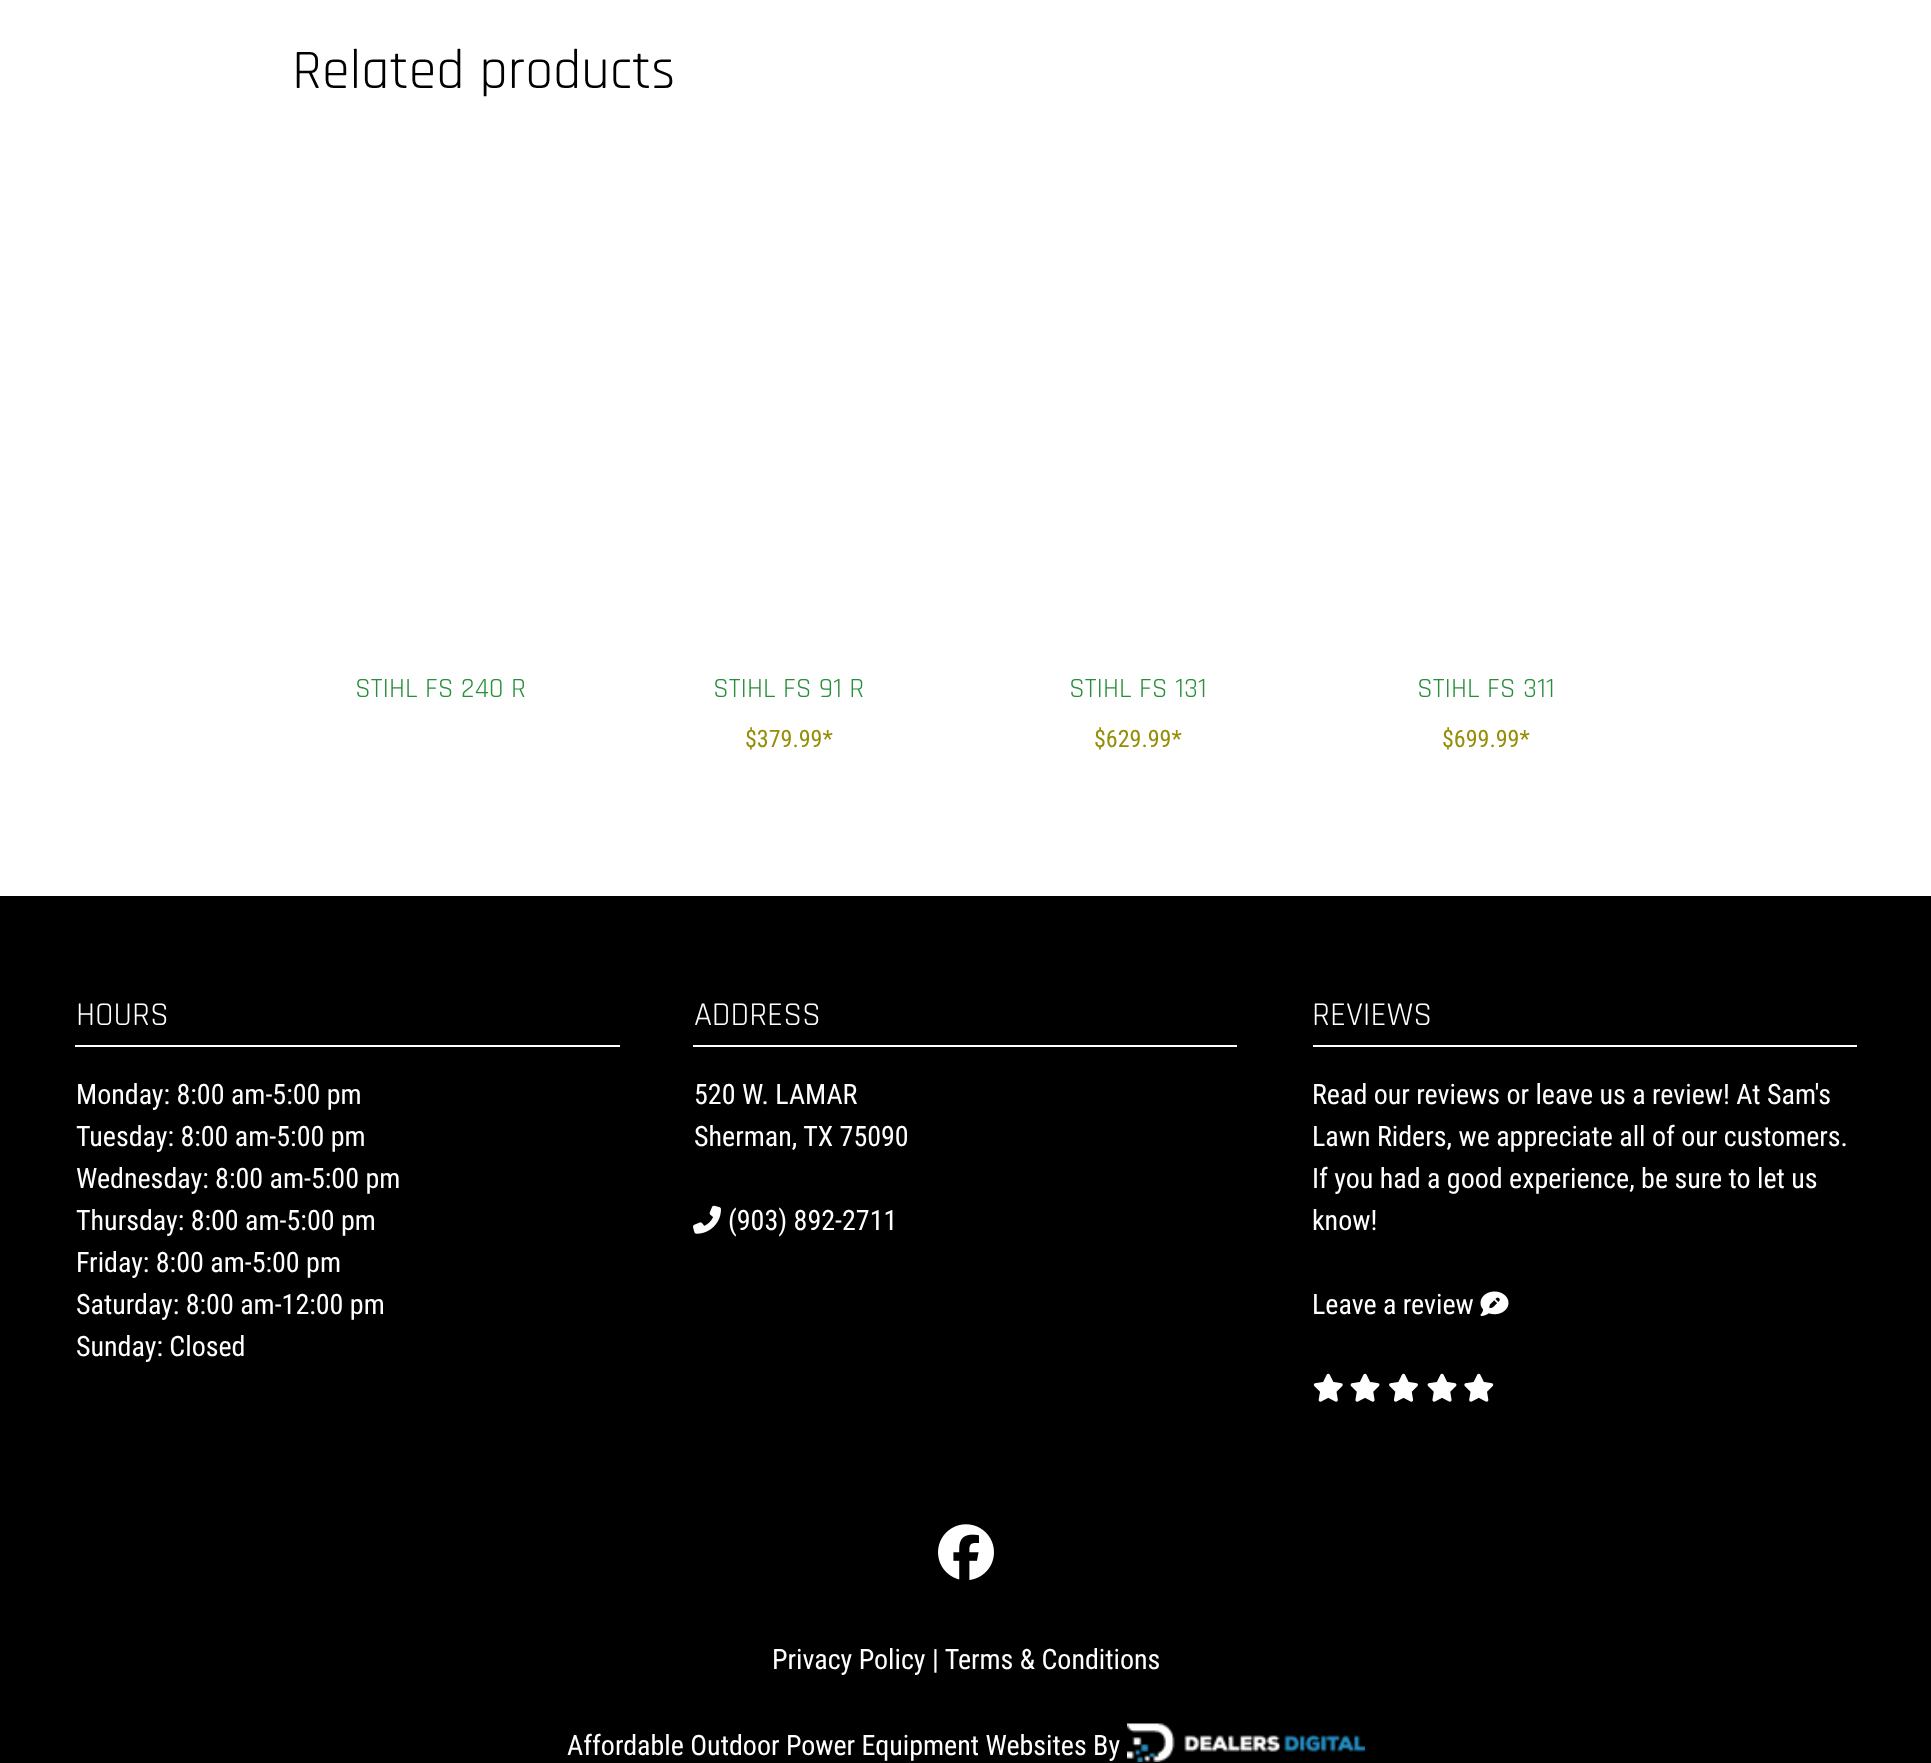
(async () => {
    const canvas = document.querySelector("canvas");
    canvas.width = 1931;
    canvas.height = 1763;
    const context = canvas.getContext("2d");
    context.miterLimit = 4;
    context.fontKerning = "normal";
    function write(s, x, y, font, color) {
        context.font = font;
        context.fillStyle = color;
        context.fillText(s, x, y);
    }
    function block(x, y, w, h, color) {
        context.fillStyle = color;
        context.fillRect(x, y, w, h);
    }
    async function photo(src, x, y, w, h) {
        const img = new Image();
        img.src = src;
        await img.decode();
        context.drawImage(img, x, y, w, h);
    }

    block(0, 0, 1931, 1763, "rgb(255, 255, 255)");
    write("Related products", 292, 88, "56px Rajdhani", "rgb(0, 0, 0)");
    write("STIHL FS 240 R", 355, 697, "28px Rajdhani", "rgb(41, 142, 59)");
    write("STIHL FS 91 R", 713, 697, "28px Rajdhani", "rgb(41, 142, 59)");
    write("$379.99*", 745, 747, "24px Roboto Condensed", "rgb(149, 142, 9)");
    write("STIHL FS 131", 1069, 697, "28px Rajdhani", "rgb(41, 142, 59)");
    write("$629.99*", 1094, 747, "24px Roboto Condensed", "rgb(149, 142, 9)");
    write("STIHL FS 311", 1417, 697, "28px Rajdhani", "rgb(41, 142, 59)");
    write("$699.99*", 1442, 747, "24px Roboto Condensed", "rgb(149, 142, 9)");
    block(0, 896, 1931, 867, "rgb(0, 0, 0)");
    block(75, 1045, 545, 2, "rgb(255, 255, 255)");
    write("HOURS", 76, 1025, "33.5px Rajdhani", "rgb(255, 255, 255)");
    write("Monday: 8:00 am-5:00 pm", 76, 1104, "28px Roboto Condensed", "rgb(255, 255, 255)");
    write("Tuesday: 8:00 am-5:00 pm", 76, 1146, "28px Roboto Condensed", "rgb(255, 255, 255)");
    write("Wednesday: 8:00 am-5:00 pm", 76, 1188, "28px Roboto Condensed", "rgb(255, 255, 255)");
    write("Thursday: 8:00 am-5:00 pm", 76, 1230, "28px Roboto Condensed", "rgb(255, 255, 255)");
    write("Friday: 8:00 am-5:00 pm", 76, 1272, "28px Roboto Condensed", "rgb(255, 255, 255)");
    write("Saturday: 8:00 am-12:00 pm", 76, 1314, "28px Roboto Condensed", "rgb(255, 255, 255)");
    write("Sunday: Closed", 76, 1356, "28px Roboto Condensed", "rgb(255, 255, 255)");
    block(693, 1045, 544, 2, "rgb(255, 255, 255)");
    write("ADDRESS", 694, 1025, "33.5px Rajdhani", "rgb(255, 255, 255)");
    write("520 W. LAMAR", 694, 1104, "28px Roboto Condensed", "rgb(255, 255, 255)");
    write("Sherman, TX 75090", 694, 1146, "28px Roboto Condensed", "rgb(255, 255, 255)");
    await photo("media/1.png", 693, 1205, 28, 29);
    write("(903) 892-2711", 728, 1230, "28px Roboto Condensed", "rgb(255, 255, 255)");
    block(1313, 1045, 544, 2, "rgb(255, 255, 255)");
    write("REVIEWS", 1312, 1025, "33.5px Rajdhani", "rgb(255, 255, 255)");
    write("Read our reviews or leave us a review! At Sam's", 1312, 1104, "28px Roboto Condensed", "rgb(255, 255, 255)");
    write("Lawn Riders, we appreciate all of our customers.", 1312, 1146, "28px Roboto Condensed", "rgb(255, 255, 255)");
    write("If you had a good experience, be sure to let us", 1312, 1188, "28px Roboto Condensed", "rgb(255, 255, 255)");
    write("know!", 1312, 1230, "28px Roboto Condensed", "rgb(255, 255, 255)");
    write("Leave a review", 1312, 1314, "28px Roboto Condensed", "rgb(255, 255, 255)");
    await photo("media/2.png", 1480, 1291, 29, 25);
    await photo("media/3.png", 1313, 1373, 30, 29);
    await photo("media/4.png", 1350, 1373, 30, 29);
    await photo("media/5.png", 1389, 1373, 29, 29);
    await photo("media/4.png", 1427, 1373, 30, 29);
    await photo("media/6.png", 1464, 1373, 30, 29);
    await photo("media/7.png", 938, 1524, 56, 56);
    write("Privacy Policy | Terms & Conditions", 772, 1669, "28px Roboto Condensed", "rgb(255, 255, 255)");
    write("Affordable Outdoor Power Equipment Websites By", 567, 1755, "28px Roboto Condensed", "rgb(255, 255, 255)");
    await photo("media/8.png", 1127, 1723, 238, 39);
})();
